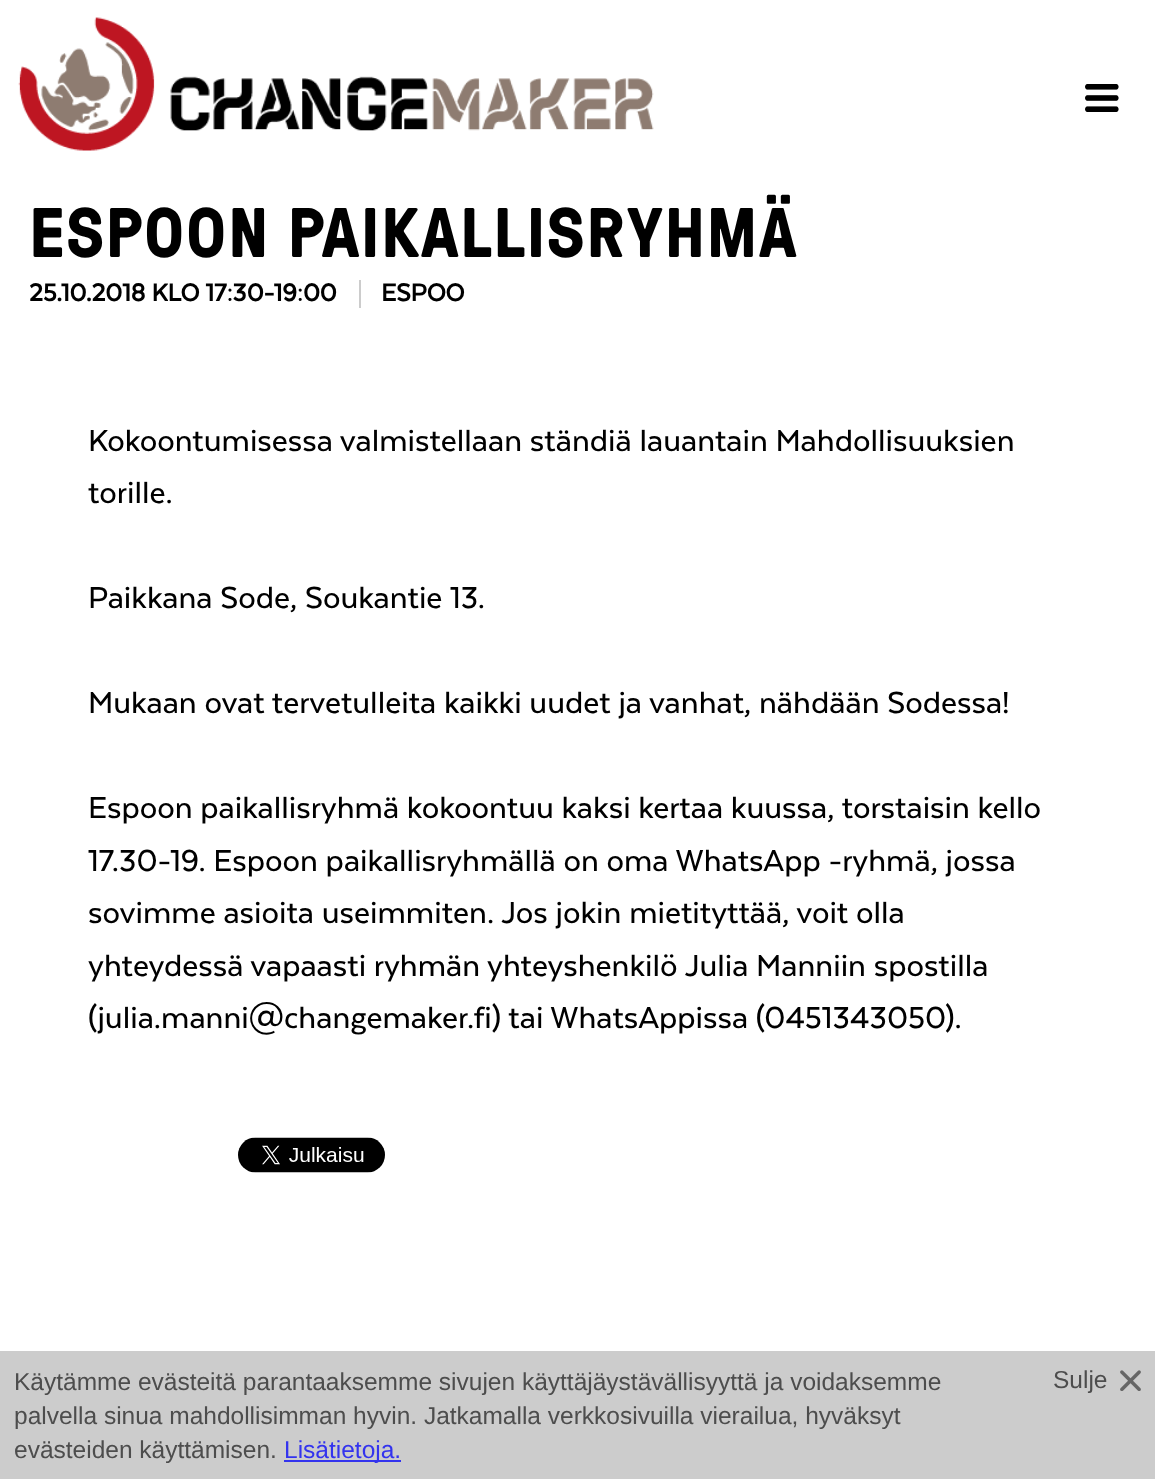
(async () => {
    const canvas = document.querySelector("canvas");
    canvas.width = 1155;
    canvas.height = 1479;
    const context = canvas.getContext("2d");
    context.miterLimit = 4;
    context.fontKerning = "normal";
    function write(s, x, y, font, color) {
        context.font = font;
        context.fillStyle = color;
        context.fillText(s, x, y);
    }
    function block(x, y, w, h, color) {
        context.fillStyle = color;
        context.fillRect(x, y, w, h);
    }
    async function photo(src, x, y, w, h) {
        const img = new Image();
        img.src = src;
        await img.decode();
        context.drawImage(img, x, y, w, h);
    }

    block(0, 0, 1155, 1479, "rgb(255, 255, 255)");
    await photo("media/1.png", 18, 17, 636, 134);
    await photo("media/2.png", 1085, 84, 34, 28);
    context.letterSpacing = "1.4px";
    write("ESPOON PAIKALLISRYHMÄ", 29, 257, "bold 70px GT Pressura", "rgb(0, 0, 0)");
    context.letterSpacing = "0px";
    write("25.10.2018 KLO 17:30-19:00", 29, 301, "bold 28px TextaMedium", "rgb(0, 0, 0)");
    block(359, 280, 2, 28, "rgb(204, 204, 204)");
    write("ESPOO", 381, 301, "bold 28px TextaMedium", "rgb(0, 0, 0)");
    write("Kokoontumisessa valmistellaan ständiä lauantain Mahdollisuuksien", 88, 451, "500 35px TextaMedium", "rgb(0, 0, 0)");
    write("torille.", 88, 503, "500 35px TextaMedium", "rgb(0, 0, 0)");
    write("Paikkana Sode, Soukantie 13.", 88, 608, "500 35px TextaMedium", "rgb(0, 0, 0)");
    write("Mukaan ovat tervetulleita kaikki uudet ja vanhat, nähdään Sodessa!", 88, 713, "500 35px TextaMedium", "rgb(0, 0, 0)");
    write("Espoon paikallisryhmä kokoontuu kaksi kertaa kuussa, torstaisin kello", 88, 818, "500 35px TextaMedium", "rgb(0, 0, 0)");
    write("17.30-19. Espoon paikallisryhmällä on oma WhatsApp -ryhmä, jossa", 88, 871, "500 35px TextaMedium", "rgb(0, 0, 0)");
    write("sovimme asioita useimmiten. Jos jokin mietityttää, voit olla", 88, 923, "500 35px TextaMedium", "rgb(0, 0, 0)");
    write("yhteydessä vapaasti ryhmän yhteyshenkilö Julia Manniin spostilla", 88, 976, "500 35px TextaMedium", "rgb(0, 0, 0)");
    write("(julia.manni@changemaker.fi) tai WhatsAppissa (0451343050).", 88, 1028, "500 35px TextaMedium", "rgb(0, 0, 0)");
    await photo("media/3.png", 238, 1137, 147, 36);
    block(0, 1351, 1155, 128, "rgb(204, 204, 204)");
    write("Käytämme evästeitä parantaaksemme sivujen käyttäjäystävällisyyttä ja voidaksemme", 14, 1390, "24.5px Liberation Sans", "rgb(77, 77, 77)");
    write("Sulje", 1053, 1388, "24.5px Liberation Sans", "rgb(77, 77, 77)");
    await photo("media/4.png", 1120, 1370, 21, 21);
    write("palvella sinua mahdollisimman hyvin. Jatkamalla verkkosivuilla vierailua, hyväksyt", 14, 1424, "24.5px Liberation Sans", "rgb(77, 77, 77)");
    write("evästeiden käyttämisen.", 14, 1458, "24.5px Liberation Sans", "rgb(77, 77, 77)");
    block(284, 1460, 117, 2, "rgb(51, 51, 238)");
    write("Lisätietoja.", 284, 1458, "24.5px Liberation Sans", "rgb(51, 51, 238)");
})();
